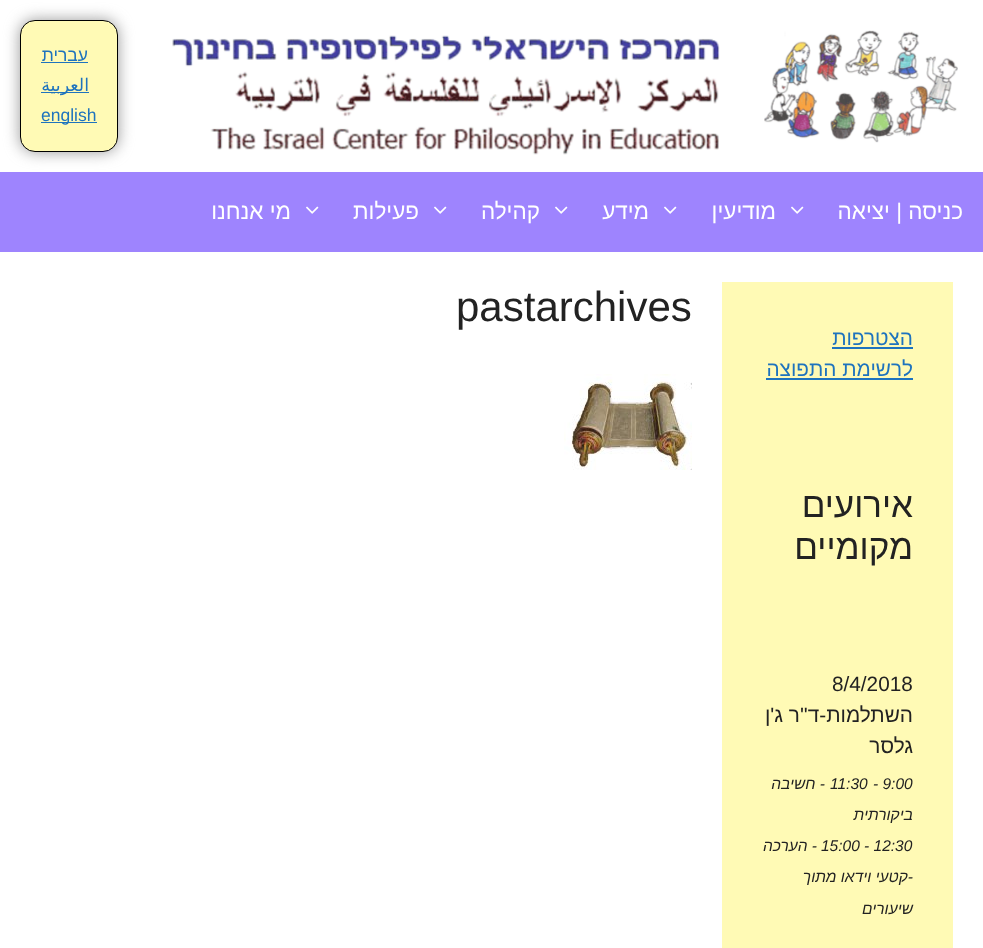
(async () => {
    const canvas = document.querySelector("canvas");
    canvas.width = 983;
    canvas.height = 948;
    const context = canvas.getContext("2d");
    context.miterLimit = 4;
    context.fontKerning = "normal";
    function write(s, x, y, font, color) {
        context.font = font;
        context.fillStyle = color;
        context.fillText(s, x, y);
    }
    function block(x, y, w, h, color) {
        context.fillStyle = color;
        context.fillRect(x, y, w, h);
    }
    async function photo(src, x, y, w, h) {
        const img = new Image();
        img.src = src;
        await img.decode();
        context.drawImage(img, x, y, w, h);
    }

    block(0, 0, 983, 948, "rgb(158, 132, 254)");
    block(0, 0, 983, 172, "rgb(255, 255, 255)");
    await photo("media/1.png", 172, 35, 548, 120);
    await photo("media/2.png", 764, 30, 194, 113);
    context.fillStyle = "rgb(153, 153, 153)";
    context.filter = "blur(7.5px)";
    context.beginPath();
    context.roundRect(20, 20, 98, 132, 15);
    context.fill();
    context.filter = "none";
    context.fillStyle = "rgb(255, 250, 181)";
    context.beginPath();
    context.roundRect(20.5, 20.5, 97, 131, 14.5);
    context.fill();
    context.strokeStyle = "rgb(0, 0, 0)";
    context.stroke();
    context.direction = "rtl";
    write("עברית", 88, 61, "17.5px Liberation Sans", "rgb(30, 115, 190)");
    block(41, 62, 47, 1, "rgb(30, 115, 190)");
    block(41, 92, 48, 1, "rgb(30, 115, 190)");
    write("العربية", 89, 91, "17.5px DejaVu Sans", "rgb(30, 115, 190)");
    block(41, 122, 56, 1, "rgb(30, 115, 190)");
    context.direction = "ltr";
    write("english", 41, 121, "17.5px Liberation Sans", "rgb(30, 115, 190)");
    context.direction = "rtl";
    write("כניסה | יציאה", 963, 219, "22.5px Liberation Sans", "rgb(255, 255, 255)");
    await photo("media/3.png", 791, 206, 13, 8);
    write("מודיעין", 776, 219, "22.5px Liberation Sans", "rgb(255, 255, 255)");
    await photo("media/3.png", 664, 206, 13, 8);
    write("מידע", 649, 219, "22.5px Liberation Sans", "rgb(255, 255, 255)");
    await photo("media/3.png", 555, 206, 13, 8);
    write("קהילה", 540, 219, "22.5px Liberation Sans", "rgb(255, 255, 255)");
    await photo("media/3.png", 434, 206, 13, 8);
    write("פעילות", 419, 219, "22.5px Liberation Sans", "rgb(255, 255, 255)");
    await photo("media/3.png", 306, 206, 13, 8);
    write("מי אנחנו", 291, 219, "22.5px Liberation Sans", "rgb(255, 255, 255)");
    block(0, 252, 983, 696, "rgb(255, 255, 255)");
    context.direction = "ltr";
    write("pastarchives", 456, 321, "42px Liberation Sans", "rgb(34, 34, 34)");
    await photo("media/4.png", 564, 374, 128, 96);
    block(722, 282, 231, 666, "rgb(255, 250, 181)");
    context.direction = "rtl";
    write("הצטרפות", 913, 345, "20.75px Liberation Sans", "rgb(30, 115, 190)");
    block(832, 347, 81, 2, "rgb(30, 115, 190)");
    write("לרשימת התפוצה", 913, 376, "20.75px Liberation Sans", "rgb(30, 115, 190)");
    block(766, 378, 147, 2, "rgb(30, 115, 190)");
    write("אירועים", 913, 517, "35px Liberation Sans", "rgb(34, 34, 34)");
    write("מקומיים", 913, 559, "35px Liberation Sans", "rgb(34, 34, 34)");
    context.direction = "ltr";
    write("8/4/2018", 832, 691, "20.75px Liberation Sans", "rgb(34, 34, 34)");
    context.direction = "rtl";
    write("השתלמות-ד''ר ג'ן", 913, 722, "20.75px Liberation Sans", "rgb(34, 34, 34)");
    write("גלסר", 913, 753, "20.75px Liberation Sans", "rgb(34, 34, 34)");
    context.direction = "ltr";
    write("- 9:00", 873, 789, "italic 15.5px Liberation Sans", "rgb(34, 34, 34)");
    write("11:30", 830, 789, "italic 15.5px Liberation Sans", "rgb(34, 34, 34)");
    context.direction = "rtl";
    write("- חשיבה", 825, 789, "italic 15.5px Liberation Sans", "rgb(34, 34, 34)");
    write("ביקורתית", 913, 820, "italic 15.5px Liberation Sans", "rgb(34, 34, 34)");
    context.direction = "ltr";
    write("15:00 - 12:30", 821, 851, "italic 15.5px Liberation Sans", "rgb(34, 34, 34)");
    context.direction = "rtl";
    write("- הערכה", 817, 851, "italic 15.5px Liberation Sans", "rgb(34, 34, 34)");
    write("-קטעי וידאו מתוך", 913, 882, "italic 15.5px Liberation Sans", "rgb(34, 34, 34)");
    write("שיעורים", 913, 914, "italic 15.5px Liberation Sans", "rgb(34, 34, 34)");
})();
